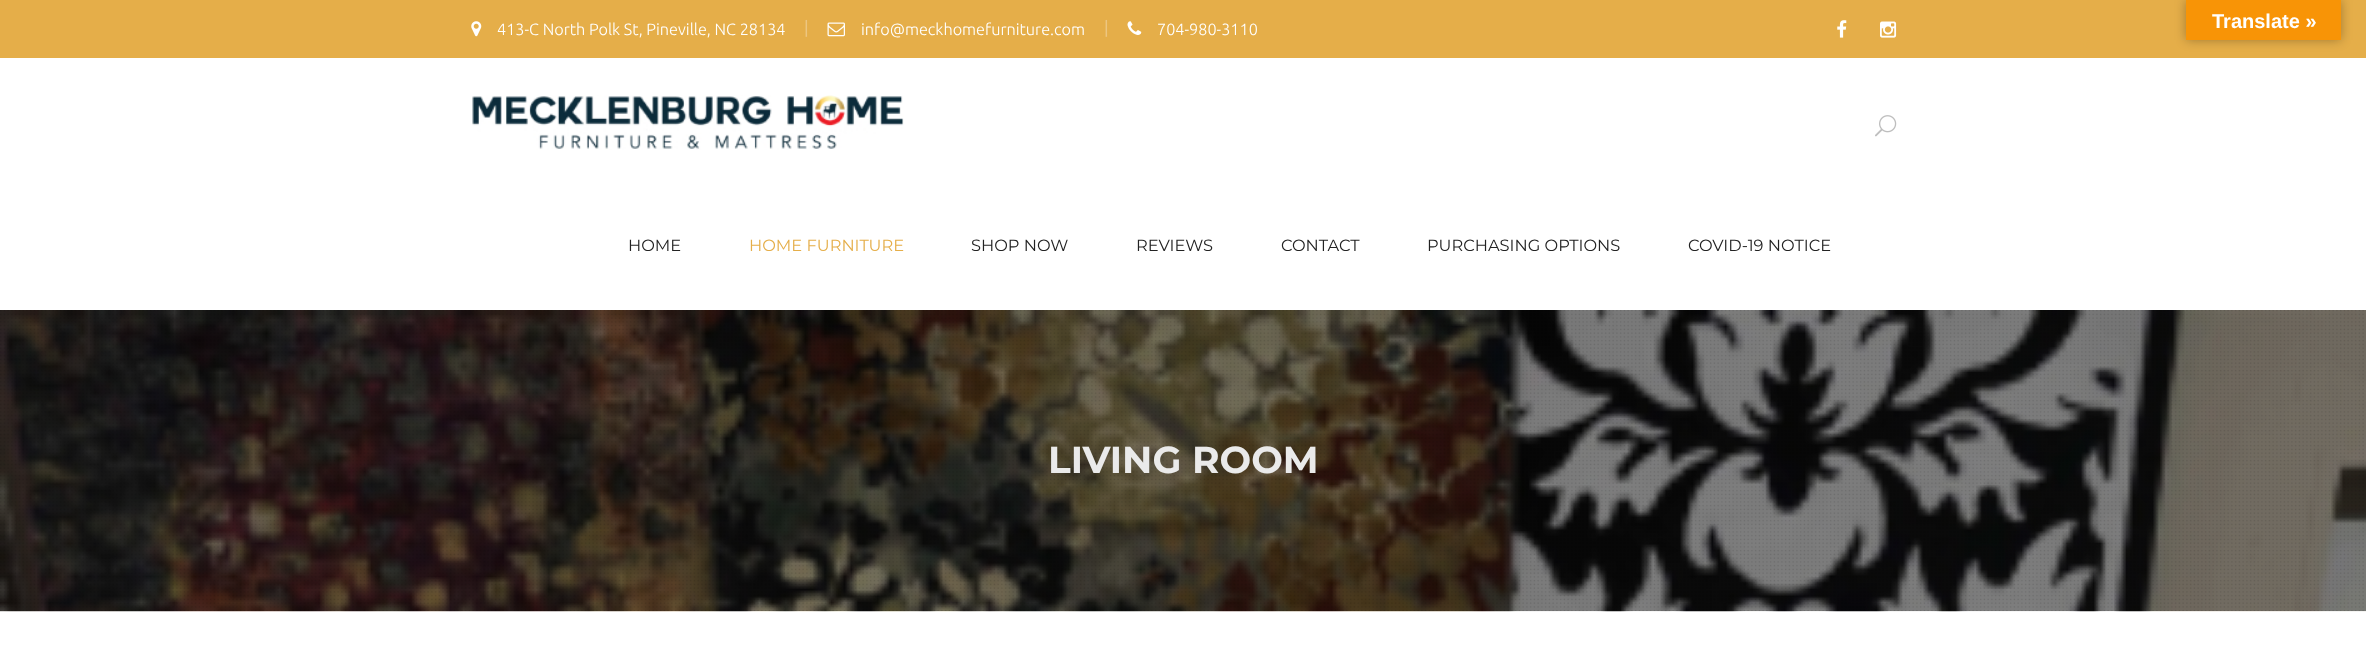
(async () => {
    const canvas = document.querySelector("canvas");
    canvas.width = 2366;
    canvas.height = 648;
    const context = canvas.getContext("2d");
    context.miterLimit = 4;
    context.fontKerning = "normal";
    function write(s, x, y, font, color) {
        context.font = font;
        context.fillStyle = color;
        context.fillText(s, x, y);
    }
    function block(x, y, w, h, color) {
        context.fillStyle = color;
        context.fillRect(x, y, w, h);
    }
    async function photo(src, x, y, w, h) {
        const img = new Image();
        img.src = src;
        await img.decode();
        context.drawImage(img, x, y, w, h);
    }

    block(0, 0, 2366, 648, "rgb(255, 255, 255)");
    block(0, 0, 2366, 58, "rgb(229, 174, 73)");
    await photo("media/1.png", 471, 21, 11, 16);
    write("413-C North Polk St, Pineville, NC 28134", 497, 35, "300 16.25px Ubuntu", "rgb(255, 255, 255)");
    write("|", 804, 33, "18px Liberation Sans", "rgb(237, 198, 128)");
    await photo("media/2.png", 827, 22, 18, 15);
    write("info@meckhomefurniture.com", 861, 35, "300 16.25px Ubuntu", "rgb(255, 255, 255)");
    write("|", 1104, 33, "18px Liberation Sans", "rgb(237, 198, 128)");
    await photo("media/3.png", 1127, 21, 15, 14);
    write("704-980-3110", 1157, 35, "300 16.25px Ubuntu", "rgb(255, 255, 255)");
    await photo("media/4.png", 1837, 20, 10, 18);
    await photo("media/5.png", 1880, 21, 17, 17);
    await photo("media/6.png", 472, 95, 432, 55);
    await photo("media/7.png", 1875, 115, 22, 22);
    write("HOME", 628, 251, "16.25px Montserrat", "rgb(34, 34, 34)");
    write("HOME FURNITURE", 749, 251, "16.25px Montserrat", "rgb(229, 174, 73)");
    write("SHOP NOW", 971, 251, "16.25px Montserrat", "rgb(34, 34, 34)");
    write("REVIEWS", 1136, 251, "16.25px Montserrat", "rgb(34, 34, 34)");
    write("CONTACT", 1281, 251, "16.25px Montserrat", "rgb(34, 34, 34)");
    write("PURCHASING OPTIONS", 1427, 251, "16.25px Montserrat", "rgb(34, 34, 34)");
    write("COVID-19 NOTICE", 1688, 251, "16.25px Montserrat", "rgb(34, 34, 34)");
    context.fillStyle = "rgba(0, 0, 0, 0.3)";
    context.filter = "blur(5.5px)";
    context.beginPath();
    context.rect(2186, 0, 155, 40);
    context.fill();
    context.filter = "none";
    block(2186, 0, 155, 40, "rgb(248, 148, 6)");
    write("Translate »", 2212, 28, "bold 20px Liberation Sans", "rgb(255, 255, 255)");
    await photo("media/8.png", 0, 310, 2366, 302);
    await photo("media/9.png", 0, 310, 2364, 301);
    write("LIVING ROOM", 1048, 473, "bold 37.5px Montserrat", "rgb(234, 234, 234)");
})();
